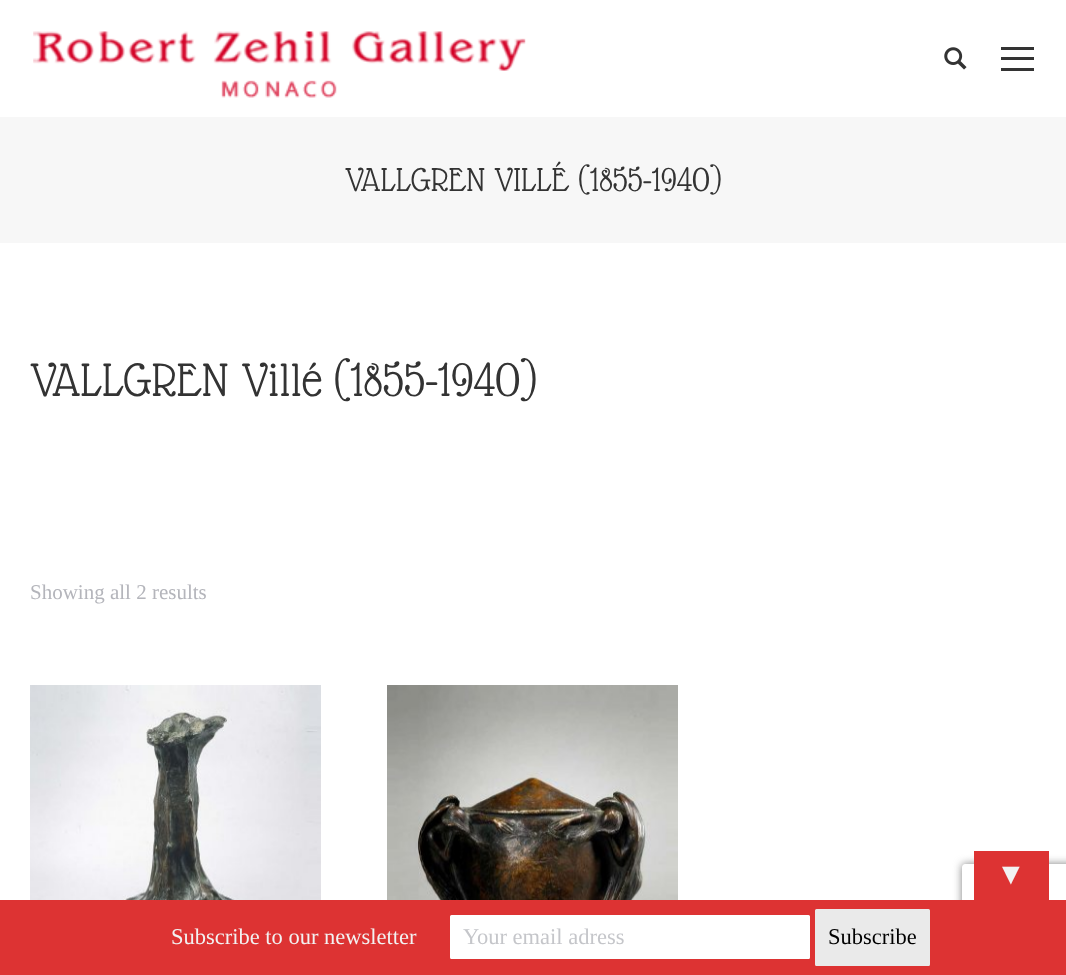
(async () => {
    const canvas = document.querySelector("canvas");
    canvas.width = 1066;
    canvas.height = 975;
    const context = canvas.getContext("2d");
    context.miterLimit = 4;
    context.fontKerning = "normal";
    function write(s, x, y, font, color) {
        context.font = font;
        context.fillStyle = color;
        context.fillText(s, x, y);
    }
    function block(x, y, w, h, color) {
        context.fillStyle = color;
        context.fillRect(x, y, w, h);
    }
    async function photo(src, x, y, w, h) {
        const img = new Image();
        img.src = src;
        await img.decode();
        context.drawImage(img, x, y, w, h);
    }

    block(0, 0, 1066, 975, "rgb(255, 255, 255)");
    await photo("media/1.png", 33, 31, 493, 67);
    await photo("media/2.png", 944, 47, 23, 23);
    block(1001, 57, 33, 3, "rgb(51, 51, 51)");
    block(1001, 47, 33, 3, "rgb(51, 51, 51)");
    block(1001, 68, 33, 3, "rgb(51, 51, 51)");
    block(0, 117, 1066, 126, "rgb(247, 247, 247)");
    write("VALLGREN VILLÉ (1855-1940)", 345, 191, "36px Glass Antiqua", "rgb(51, 51, 51)");
    write("VALLGREN Villé (1855-1940)", 30, 396, "51px Glass Antiqua", "rgb(51, 51, 51)");
    write("Showing all 2 results", 30, 599, "21px Liberation Serif", "rgb(180, 181, 187)");
    await photo("media/3.png", 30, 685, 291, 215);
    await photo("media/4.png", 387, 685, 291, 215);
    context.save();
    context.beginPath();
    context.moveTo(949, 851);
    context.lineTo(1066, 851);
    context.lineTo(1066, 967);
    context.lineTo(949, 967);
    context.closePath();
    context.moveTo(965, 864);
    context.lineTo(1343, 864);
    context.bezierCurveTo(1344.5, 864, 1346, 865.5, 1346, 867);
    context.lineTo(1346, 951);
    context.bezierCurveTo(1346, 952.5, 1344.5, 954, 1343, 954);
    context.lineTo(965, 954);
    context.bezierCurveTo(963.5, 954, 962, 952.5, 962, 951);
    context.lineTo(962, 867);
    context.bezierCurveTo(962, 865.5, 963.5, 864, 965, 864);
    context.closePath();
    context.clip("evenodd");
    context.fillStyle = "rgb(128, 128, 128)";
    context.filter = "blur(4px)";
    context.beginPath();
    context.roundRect(962, 864, 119, 90, 3);
    context.fill();
    context.filter = "none";
    context.restore();
    block(974, 851, 75, 49, "rgb(221, 51, 51)");
    write("▼", 996, 884, "30px Liberation Serif", "rgb(242, 242, 242)");
    block(0, 900, 1066, 75, "rgb(221, 51, 51)");
    write("Subscribe to our newsletter", 171, 944, "22.5px Liberation Serif", "rgb(242, 242, 242)");
    context.fillStyle = "rgb(255, 255, 255)";
    context.beginPath();
    context.roundRect(451, 916, 358, 42, 0.5);
    context.fill();
    context.strokeStyle = "rgb(255, 255, 255)";
    context.lineWidth = 2;
    context.stroke();
    write("Your email adress", 463, 944, "22.5px Liberation Serif", "rgb(197, 198, 202)");
    context.fillStyle = "rgb(234, 234, 234)";
    context.beginPath();
    context.roundRect(816, 910, 113, 55, 0.5);
    context.fill();
    context.strokeStyle = "rgb(234, 234, 234)";
    context.stroke();
    write("Subscribe", 828, 944, "22.5px Liberation Serif", "rgb(0, 0, 0)");
})();
